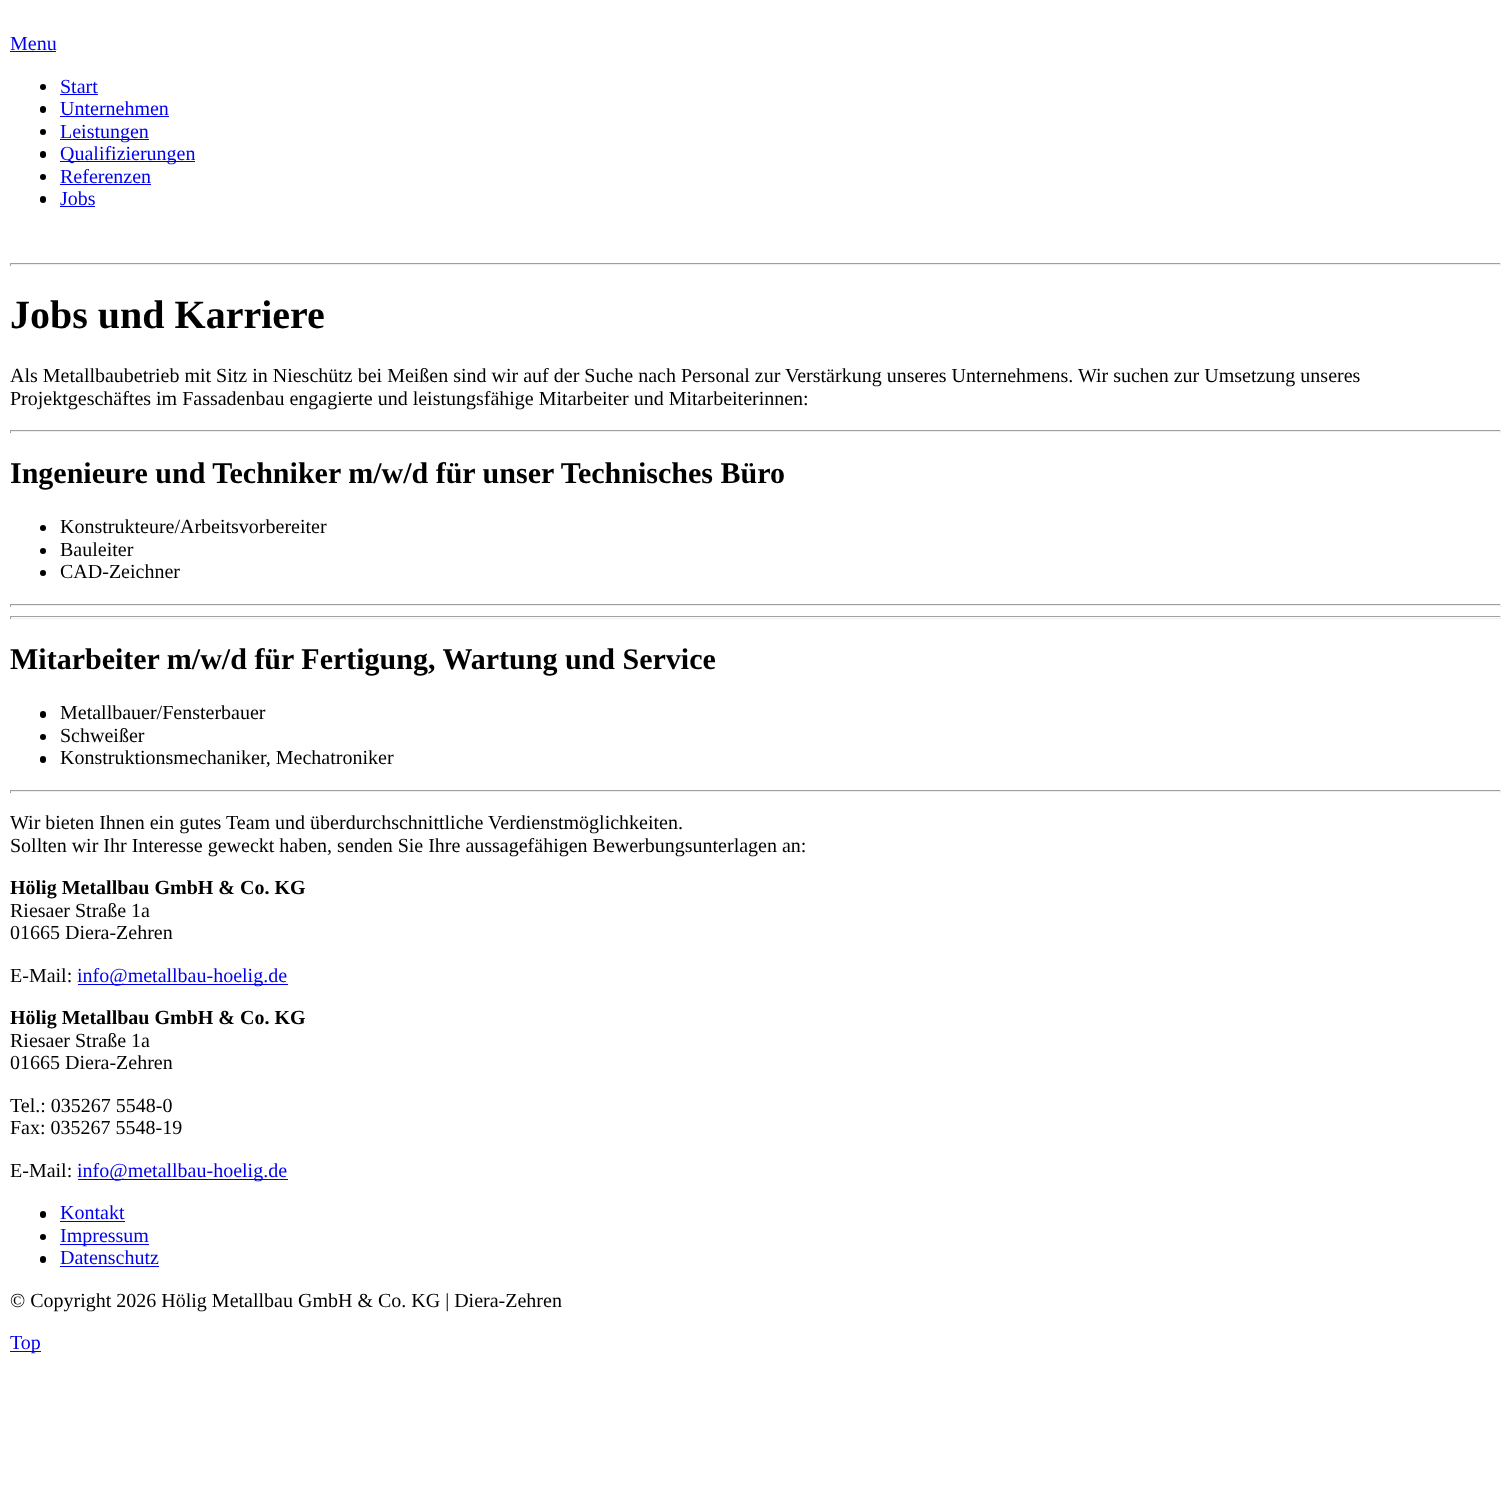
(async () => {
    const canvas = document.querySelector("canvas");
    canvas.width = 1511;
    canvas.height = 1500;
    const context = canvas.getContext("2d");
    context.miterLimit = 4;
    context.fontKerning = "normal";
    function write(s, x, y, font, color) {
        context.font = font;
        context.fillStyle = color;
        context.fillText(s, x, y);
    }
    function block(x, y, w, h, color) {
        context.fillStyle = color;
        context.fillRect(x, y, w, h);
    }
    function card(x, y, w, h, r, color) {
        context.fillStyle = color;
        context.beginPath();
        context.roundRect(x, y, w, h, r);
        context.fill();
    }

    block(0, 0, 1511, 1500, "rgb(255, 255, 255)");
    write("Menu", 10, 50, "20px Liberation Serif", "rgb(0, 0, 238)");
    block(10, 51, 46, 1, "rgb(0, 0, 238)");
    context.fillStyle = "rgb(0, 0, 0)";
    context.beginPath();
    context.arc(43, 87, 3, 0, Math.PI * 2);
    context.fill();
    write("Start", 60, 93, "20px Liberation Serif", "rgb(0, 0, 238)");
    block(60, 94, 38, 1, "rgb(0, 0, 238)");
    card(40, 106, 6, 7, 3, "rgb(0, 0, 0)");
    write("Unternehmen", 60, 115, "20px Liberation Serif", "rgb(0, 0, 238)");
    block(60, 116, 109, 1, "rgb(0, 0, 238)");
    context.fillStyle = "rgb(0, 0, 0)";
    context.beginPath();
    context.arc(43, 132, 3, 0, Math.PI * 2);
    context.fill();
    block(60, 139, 89, 1, "rgb(0, 0, 238)");
    write("Leistungen", 60, 138, "20px Liberation Serif", "rgb(0, 0, 238)");
    card(40, 151, 6, 7, 3, "rgb(0, 0, 0)");
    block(60, 161, 135, 1, "rgb(0, 0, 238)");
    write("Qualifizierungen", 60, 160, "20px Liberation Serif", "rgb(0, 0, 238)");
    context.fillStyle = "rgb(0, 0, 0)";
    context.beginPath();
    context.arc(43, 177, 3, 0, Math.PI * 2);
    context.fill();
    write("Referenzen", 60, 183, "20px Liberation Serif", "rgb(0, 0, 238)");
    block(60, 184, 91, 1, "rgb(0, 0, 238)");
    card(40, 196, 6, 7, 3, "rgb(0, 0, 0)");
    write("Jobs", 60, 205, "20px Liberation Serif", "rgb(0, 0, 238)");
    block(60, 206, 35, 1, "rgb(0, 0, 238)");
    block(10, 263, 1491, 1, "rgb(159, 159, 159)");
    block(1500, 263, 1, 3, "rgb(238, 238, 238)");
    block(10, 264, 1491, 1, "rgb(238, 238, 238)");
    block(10, 263, 1, 3, "rgb(159, 159, 159)");
    write("Jobs und Karriere", 10, 328, "bold 40px Liberation Serif", "rgb(0, 0, 0)");
    write("Als Metallbaubetrieb mit Sitz in Nieschütz bei Meißen sind wir auf der Suche nach Personal zur Verstärkung unseres Unternehmens. Wir suchen zur Umsetzung unseres", 10, 382, "20px Liberation Serif", "rgb(0, 0, 0)");
    write("Projektgeschäftes im Fassadenbau engagierte und leistungsfähige Mitarbeiter und Mitarbeiterinnen:", 10, 405, "20px Liberation Serif", "rgb(0, 0, 0)");
    block(10, 430, 1491, 1, "rgb(159, 159, 159)");
    block(1500, 430, 1, 3, "rgb(238, 238, 238)");
    block(10, 431, 1491, 1, "rgb(238, 238, 238)");
    block(10, 430, 1, 3, "rgb(159, 159, 159)");
    write("Ingenieure und Techniker m/w/d für unser Technisches Büro", 10, 483, "bold 30px Liberation Serif", "rgb(0, 0, 0)");
    context.beginPath();
    context.arc(43, 528, 3, 0, Math.PI * 2);
    context.fill();
    write("Konstrukteure/Arbeitsvorbereiter", 60, 533, "20px Liberation Serif", "rgb(0, 0, 0)");
    context.beginPath();
    context.arc(43, 551, 3, 0, Math.PI * 2);
    context.fill();
    write("Bauleiter", 60, 556, "20px Liberation Serif", "rgb(0, 0, 0)");
    context.beginPath();
    context.arc(43, 573, 3, 0, Math.PI * 2);
    context.fill();
    write("CAD-Zeichner", 60, 578, "20px Liberation Serif", "rgb(0, 0, 0)");
    block(10, 604, 1491, 1, "rgb(159, 159, 159)");
    block(1500, 604, 1, 3, "rgb(238, 238, 238)");
    block(10, 605, 1491, 1, "rgb(238, 238, 238)");
    block(10, 604, 1, 3, "rgb(159, 159, 159)");
    block(10, 616, 1491, 1, "rgb(159, 159, 159)");
    block(1500, 616, 1, 3, "rgb(238, 238, 238)");
    block(10, 618, 1491, 1, "rgb(238, 238, 238)");
    block(10, 616, 1, 3, "rgb(159, 159, 159)");
    write("Mitarbeiter m/w/d für Fertigung, Wartung und Service", 10, 669, "bold 30px Liberation Serif", "rgb(0, 0, 0)");
    card(40, 711, 6, 7, 3, "rgb(0, 0, 0)");
    write("Metallbauer/Fensterbauer", 60, 719, "20px Liberation Serif", "rgb(0, 0, 0)");
    context.beginPath();
    context.arc(43, 737, 3, 0, Math.PI * 2);
    context.fill();
    write("Schweißer", 60, 742, "20px Liberation Serif", "rgb(0, 0, 0)");
    card(40, 756, 6, 7, 3, "rgb(0, 0, 0)");
    write("Konstruktionsmechaniker, Mechatroniker", 60, 764, "20px Liberation Serif", "rgb(0, 0, 0)");
    block(10, 790, 1491, 1, "rgb(159, 159, 159)");
    block(1500, 790, 1, 3, "rgb(238, 238, 238)");
    block(10, 791, 1491, 1, "rgb(238, 238, 238)");
    block(10, 790, 1, 3, "rgb(159, 159, 159)");
    write("Wir bieten Ihnen ein gutes Team und überdurchschnittliche Verdienstmöglichkeiten.", 10, 829, "20px Liberation Serif", "rgb(0, 0, 0)");
    write("Sollten wir Ihr Interesse geweckt haben, senden Sie Ihre aussagefähigen Bewerbungsunterlagen an:", 10, 852, "20px Liberation Serif", "rgb(0, 0, 0)");
    write("Hölig Metallbau GmbH & Co. KG", 10, 894, "bold 20px Liberation Serif", "rgb(0, 0, 0)");
    write("Riesaer Straße 1a", 10, 917, "20px Liberation Serif", "rgb(0, 0, 0)");
    write("01665 Diera-Zehren", 10, 939, "20px Liberation Serif", "rgb(0, 0, 0)");
    write("E-Mail:", 10, 982, "20px Liberation Serif", "rgb(0, 0, 0)");
    block(78, 984, 210, 1, "rgb(0, 0, 238)");
    write("info@metallbau-hoelig.de", 77, 982, "20px Liberation Serif", "rgb(0, 0, 238)");
    write("Hölig Metallbau GmbH & Co. KG", 10, 1024, "bold 20px Liberation Serif", "rgb(0, 0, 0)");
    write("Riesaer Straße 1a", 10, 1047, "20px Liberation Serif", "rgb(0, 0, 0)");
    write("01665 Diera-Zehren", 10, 1069, "20px Liberation Serif", "rgb(0, 0, 0)");
    write("Tel.: 035267 5548-0", 10, 1112, "20px Liberation Serif", "rgb(0, 0, 0)");
    write("Fax: 035267 5548-19", 10, 1134, "20px Liberation Serif", "rgb(0, 0, 0)");
    write("E-Mail:", 10, 1177, "20px Liberation Serif", "rgb(0, 0, 0)");
    block(78, 1179, 210, 1, "rgb(0, 0, 238)");
    write("info@metallbau-hoelig.de", 77, 1177, "20px Liberation Serif", "rgb(0, 0, 238)");
    card(40, 1211, 6, 7, 3, "rgb(0, 0, 0)");
    write("Kontakt", 60, 1219, "20px Liberation Serif", "rgb(0, 0, 238)");
    block(60, 1221, 65, 1, "rgb(0, 0, 238)");
    context.fillStyle = "rgb(0, 0, 0)";
    context.beginPath();
    context.arc(43, 1237, 3, 0, Math.PI * 2);
    context.fill();
    block(60, 1244, 89, 1, "rgb(0, 0, 238)");
    write("Impressum", 60, 1242, "20px Liberation Serif", "rgb(0, 0, 238)");
    card(40, 1256, 6, 7, 3, "rgb(0, 0, 0)");
    write("Datenschutz", 60, 1264, "20px Liberation Serif", "rgb(0, 0, 238)");
    block(60, 1266, 99, 1, "rgb(0, 0, 238)");
    write("© Copyright 2026 Hölig Metallbau GmbH & Co. KG | Diera-Zehren", 10, 1307, "20px Liberation Serif", "rgb(0, 0, 0)");
    block(10, 1351, 31, 1, "rgb(0, 0, 238)");
    write("Top", 10, 1349, "20px Liberation Serif", "rgb(0, 0, 238)");
})();
